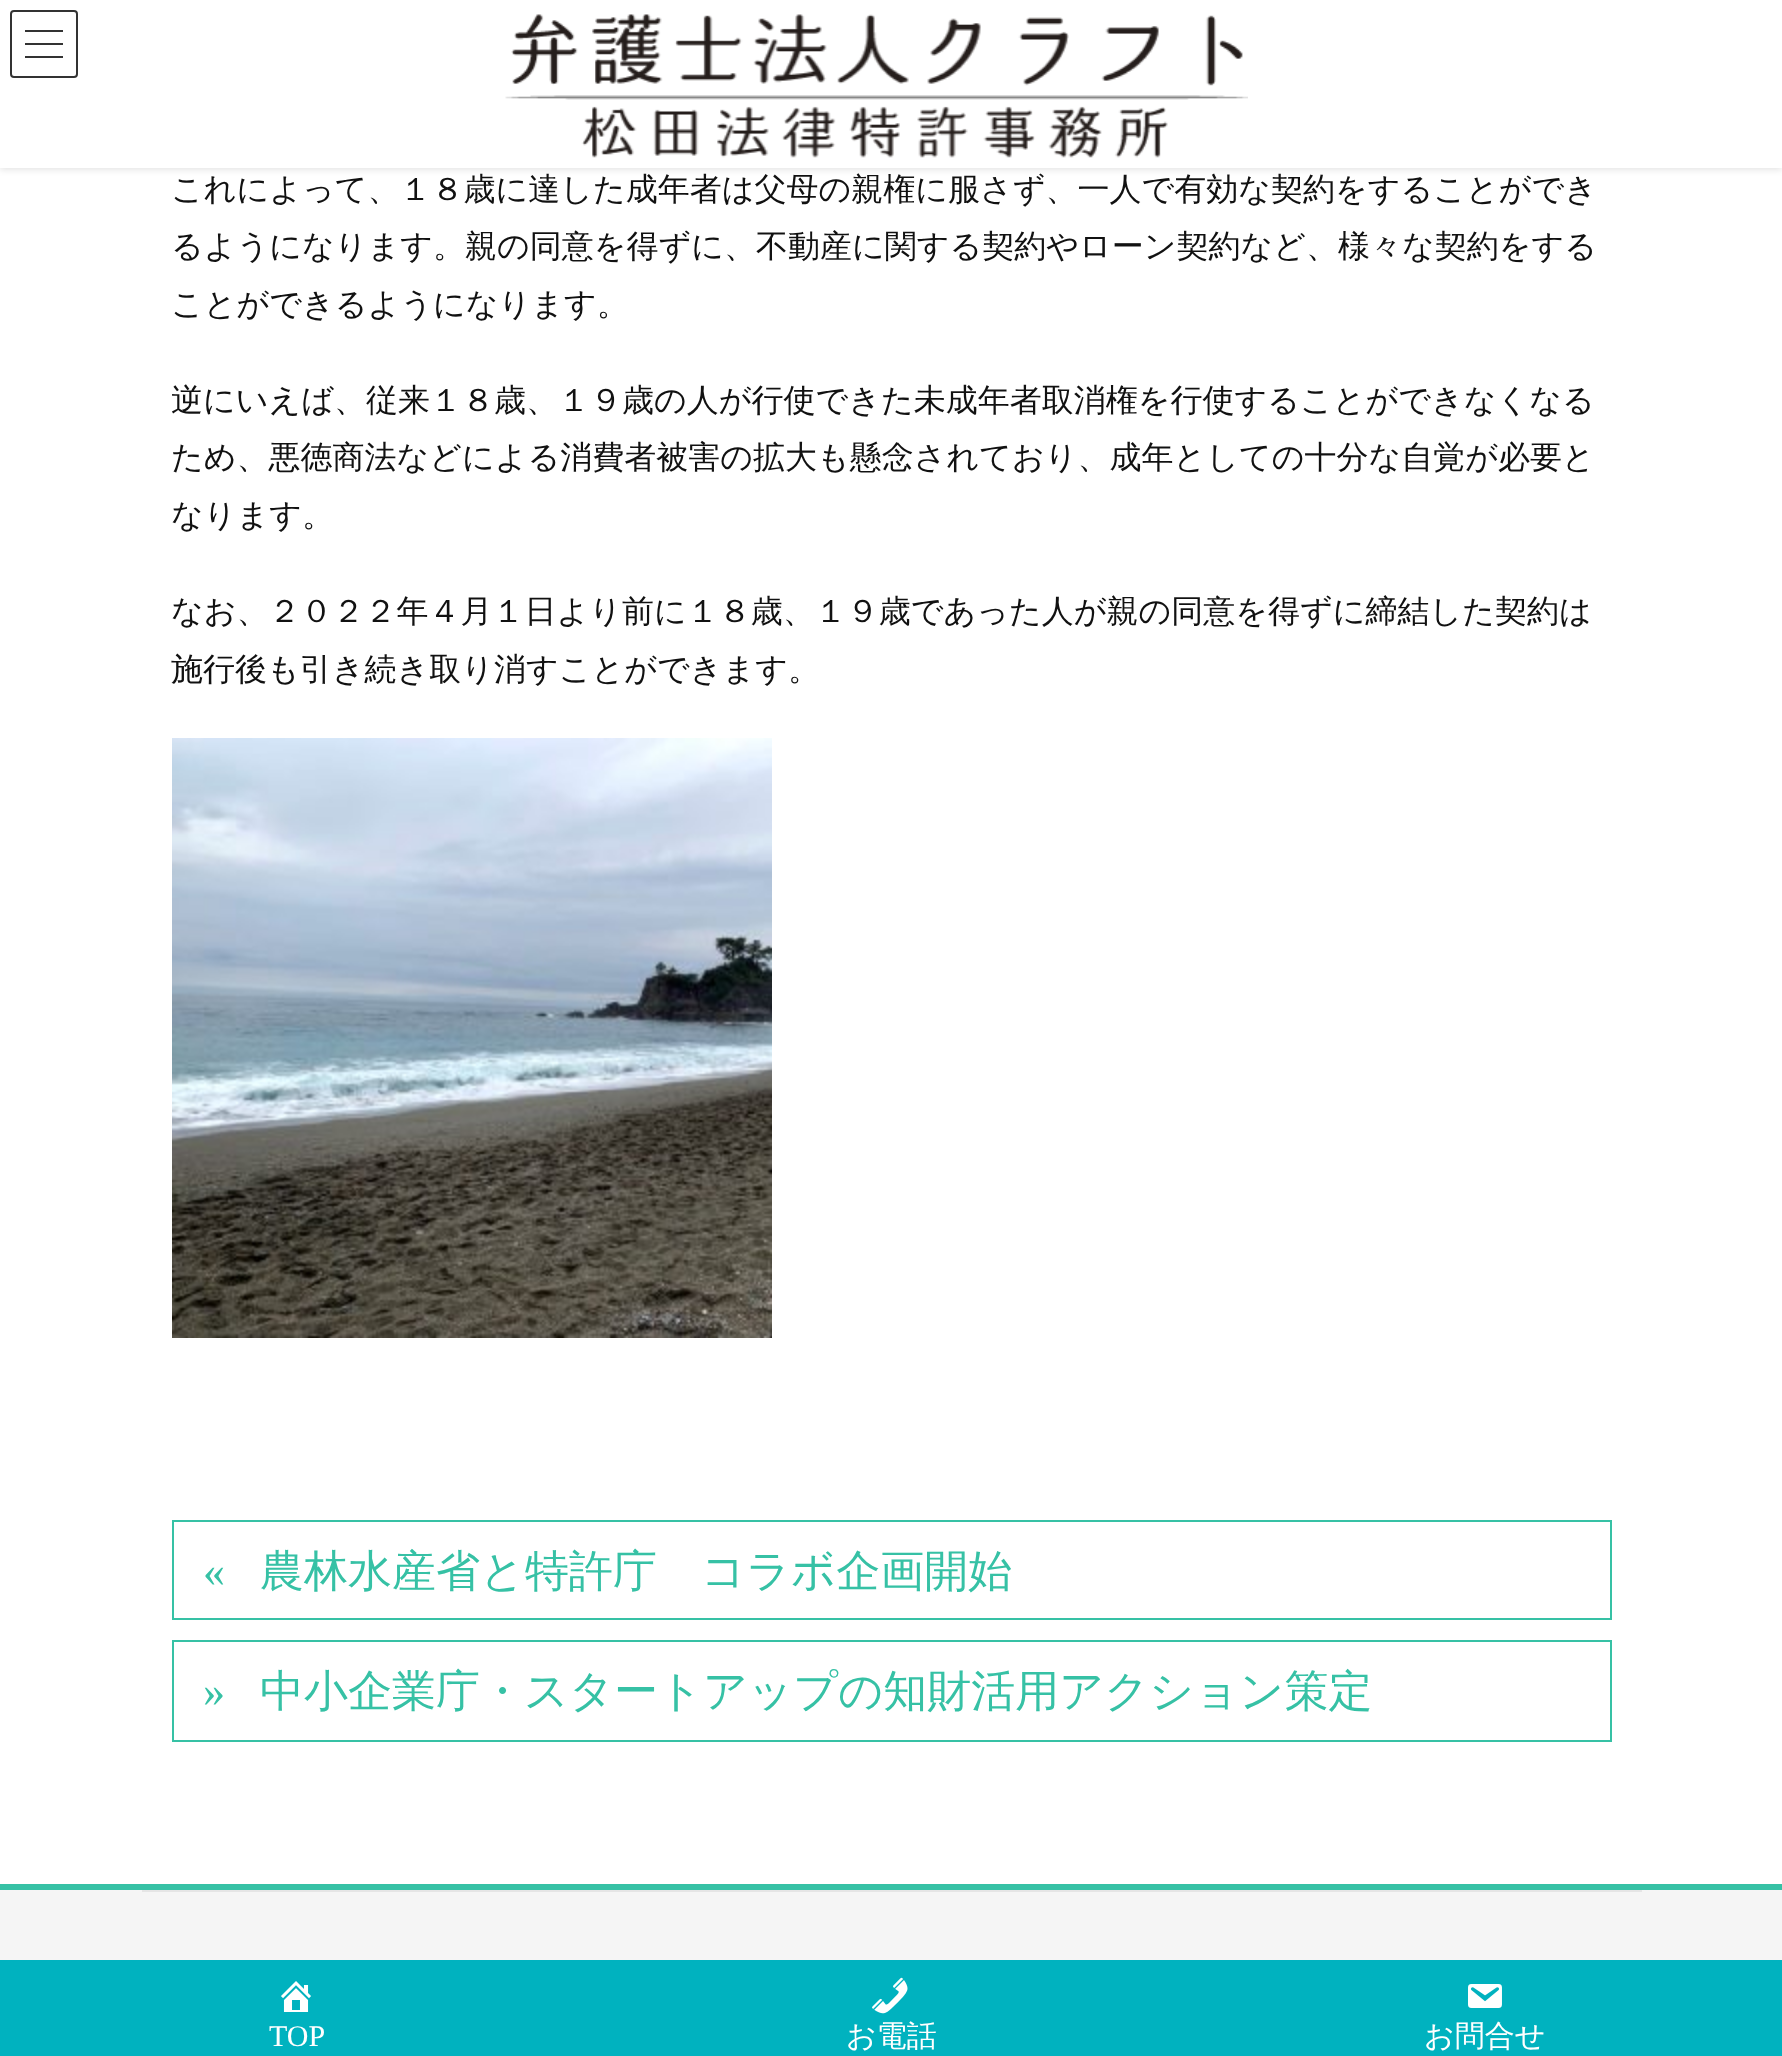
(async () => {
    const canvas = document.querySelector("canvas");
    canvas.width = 1782;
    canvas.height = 2056;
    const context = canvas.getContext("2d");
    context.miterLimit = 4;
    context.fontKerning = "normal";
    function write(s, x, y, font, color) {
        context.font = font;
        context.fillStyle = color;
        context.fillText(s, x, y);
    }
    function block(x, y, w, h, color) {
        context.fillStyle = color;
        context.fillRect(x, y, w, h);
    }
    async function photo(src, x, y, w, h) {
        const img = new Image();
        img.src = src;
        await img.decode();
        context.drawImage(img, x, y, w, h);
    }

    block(0, 0, 1782, 2056, "rgb(255, 255, 255)");
    context.fillStyle = "rgba(0, 0, 0, 0.1)";
    context.filter = "blur(3px)";
    context.beginPath();
    context.rect(0, 2, 1782, 168);
    context.fill();
    context.filter = "none";
    block(0, 0, 1782, 168, "rgb(255, 255, 255)");
    await photo("media/1.png", 505, 14, 743, 144);
    block(25, 30, 38, 2, "rgb(51, 51, 51)");
    block(25, 43, 38, 2, "rgb(51, 51, 51)");
    block(25, 56, 38, 2, "rgb(51, 51, 51)");
    context.beginPath();
    context.roundRect(11, 11, 66, 66, 3);
    context.strokeStyle = "rgb(51, 51, 51)";
    context.lineWidth = 2;
    context.stroke();
    write("これによって、１８歳に達した成年者は父母の親権に服さず、一人で有効な契約をすることができ", 171, 200, "500 32px WenQuanYi Zen Hei", "rgb(17, 17, 17)");
    write("るようになります。親の同意を得ずに、不動産に関する契約やローン契約など、様々な契約をする", 171, 257, "500 32px WenQuanYi Zen Hei", "rgb(17, 17, 17)");
    write("ことができるようになります。", 171, 315, "500 32px WenQuanYi Zen Hei", "rgb(17, 17, 17)");
    write("逆にいえば、従来１８歳、１９歳の人が行使できた未成年者取消権を行使することができなくなる", 171, 411, "500 32px WenQuanYi Zen Hei", "rgb(17, 17, 17)");
    write("ため、悪徳商法などによる消費者被害の拡大も懸念されており、成年としての十分な自覚が必要と", 171, 468, "500 32px WenQuanYi Zen Hei", "rgb(17, 17, 17)");
    write("なります。", 171, 526, "500 32px WenQuanYi Zen Hei", "rgb(17, 17, 17)");
    write("なお、２０２２年４月１日より前に１８歳、１９歳であった人が親の同意を得ずに締結した契約は", 171, 622, "500 32px WenQuanYi Zen Hei", "rgb(17, 17, 17)");
    write("施行後も引き続き取り消すことができます。", 171, 680, "500 32px WenQuanYi Zen Hei", "rgb(17, 17, 17)");
    await photo("media/2.png", 172, 738, 600, 600);
    context.strokeStyle = "rgb(54, 193, 165)";
    context.strokeRect(173, 1521, 1438, 98);
    write("«", 203, 1586, "44px Liberation Serif", "rgb(54, 193, 165)");
    write("農林水産省と特許庁　コラボ企画開始", 260, 1586, "500 44px WenQuanYi Zen Hei", "rgb(54, 193, 165)");
    context.strokeRect(173, 1641, 1438, 100);
    write("»", 203, 1706, "44px Liberation Serif", "rgb(54, 193, 165)");
    write("中小企業庁・スタートアップの知財活用アクション策定", 260, 1706, "500 44px WenQuanYi Zen Hei", "rgb(54, 193, 165)");
    block(0, 1890, 1782, 70, "rgb(245, 245, 245)");
    block(0, 1884, 1782, 6, "rgb(54, 193, 165)");
    block(142, 1890, 1500, 2, "rgb(229, 229, 229)");
    block(0, 1960, 1782, 96, "rgb(0, 178, 191)");
    await photo("media/3.png", 281, 1981, 30, 31);
    write("TOP", 269, 2046, "30px Liberation Serif", "rgb(255, 255, 255)");
    await photo("media/4.png", 872, 1977, 36, 37);
    write("お電話", 846, 2046, "500 30px WenQuanYi Zen Hei", "rgb(255, 255, 255)");
    await photo("media/5.png", 1468, 1984, 34, 24);
    write("お問合せ", 1424, 2046, "500 30px WenQuanYi Zen Hei", "rgb(255, 255, 255)");
})();
